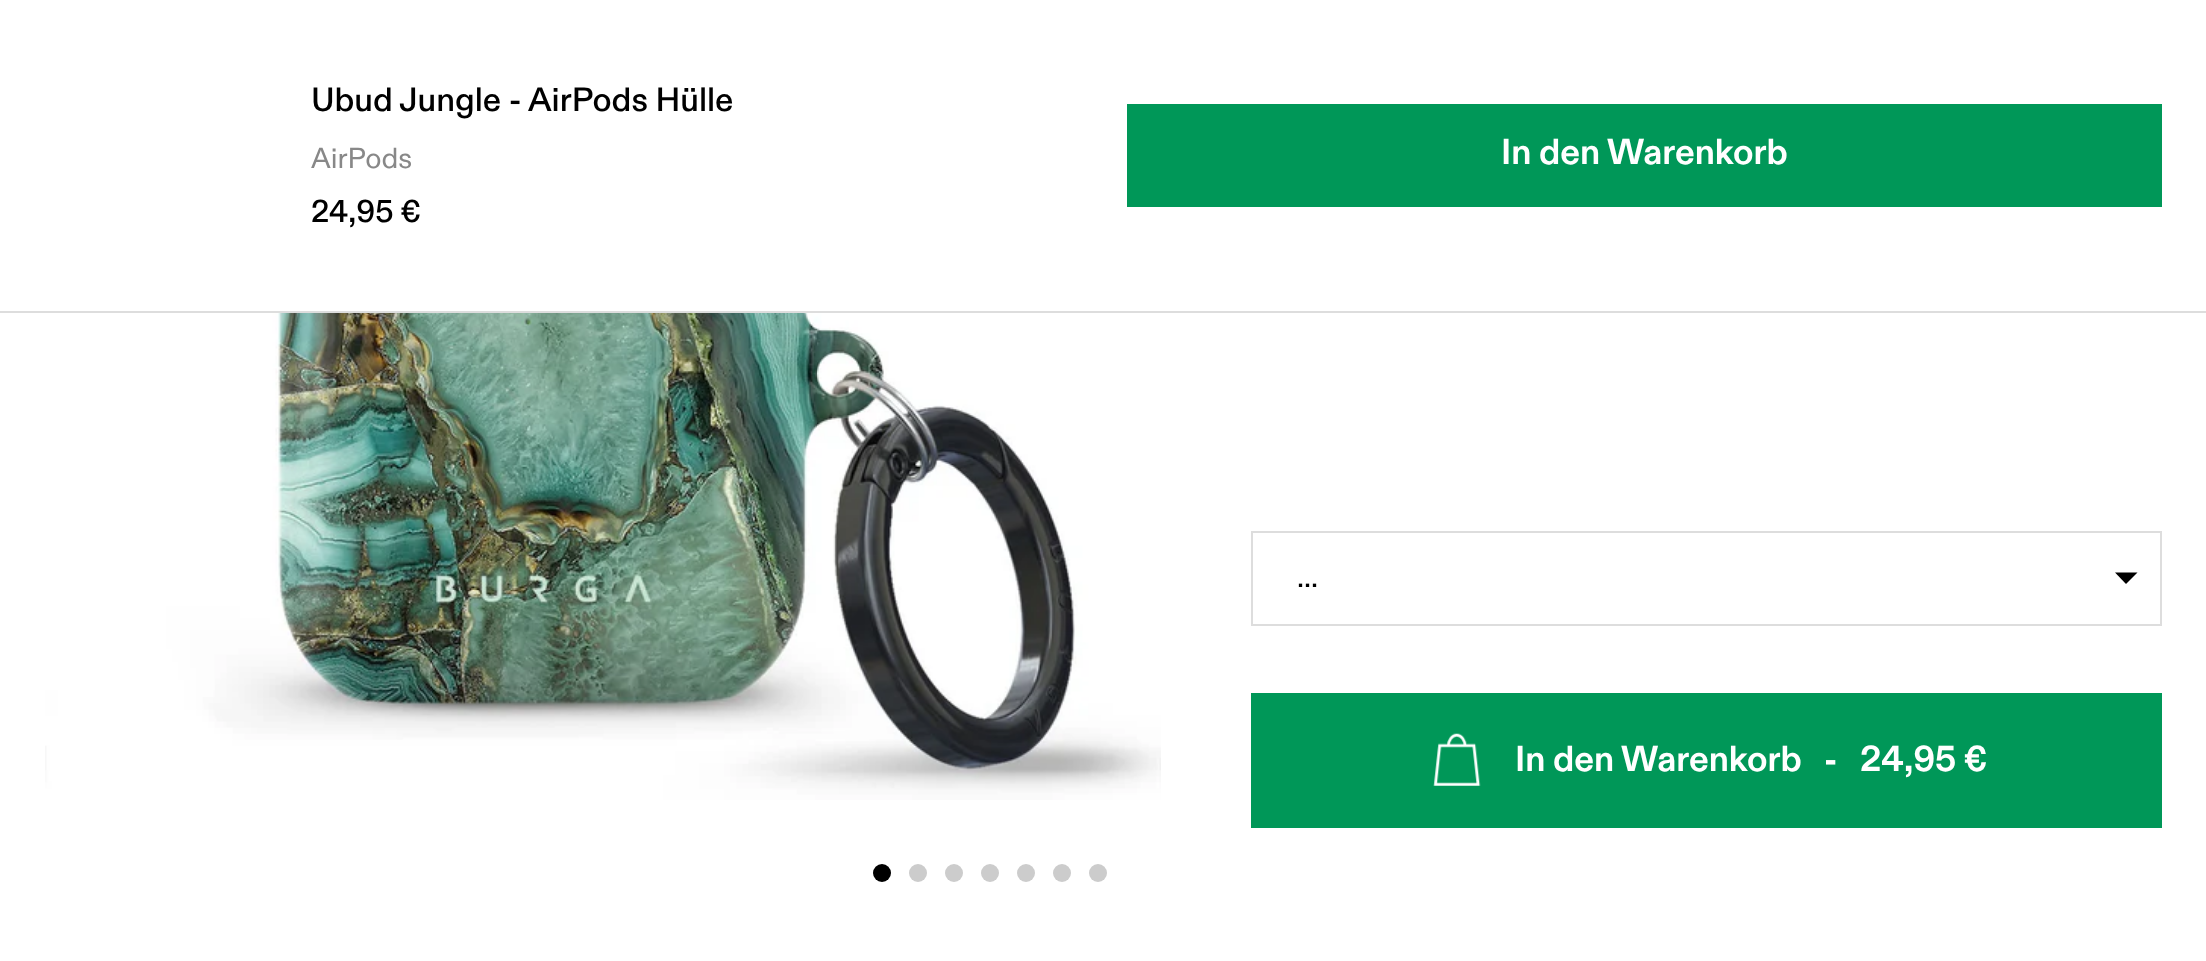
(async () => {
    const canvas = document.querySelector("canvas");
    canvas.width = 2206;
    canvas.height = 961;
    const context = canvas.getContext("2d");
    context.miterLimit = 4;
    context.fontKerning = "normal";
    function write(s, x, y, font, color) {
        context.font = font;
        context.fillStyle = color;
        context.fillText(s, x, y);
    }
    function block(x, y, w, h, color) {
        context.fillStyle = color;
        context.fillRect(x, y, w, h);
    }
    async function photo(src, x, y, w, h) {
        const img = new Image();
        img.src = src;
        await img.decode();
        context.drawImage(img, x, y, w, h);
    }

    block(0, 0, 2206, 961, "rgb(255, 255, 255)");
    block(0, 311, 2206, 2, "rgb(221, 221, 221)");
    write("Ubud Jungle - AirPods Hülle", 311, 111, "500 33.75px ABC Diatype", "rgb(0, 0, 0)");
    write("AirPods", 311, 168, "29px ABC Diatype", "rgb(136, 136, 136)");
    write("24,95 €", 311, 222, "500 31.5px ABC Diatype", "rgb(0, 0, 0)");
    block(1127, 104, 1035, 103, "rgb(0, 151, 88)");
    write("In den Warenkorb", 1501, 164, "bold 36px ABC Diatype", "rgb(255, 255, 255)");
    await photo("media/1.png", 45, 313, 1116, 487);
    context.fillStyle = "rgb(0, 0, 0)";
    context.beginPath();
    context.arc(882, 873, 9, 0, Math.PI * 2);
    context.fill();
    context.fillStyle = "rgb(204, 204, 204)";
    context.beginPath();
    context.arc(918, 873, 9, 0, Math.PI * 2);
    context.fill();
    context.beginPath();
    context.arc(954, 873, 9, 0, Math.PI * 2);
    context.fill();
    context.beginPath();
    context.arc(990, 873, 9, 0, Math.PI * 2);
    context.fill();
    context.beginPath();
    context.arc(1026, 873, 9, 0, Math.PI * 2);
    context.fill();
    context.beginPath();
    context.arc(1062, 873, 9, 0, Math.PI * 2);
    context.fill();
    context.beginPath();
    context.arc(1098, 873, 9, 0, Math.PI * 2);
    context.fill();
    context.strokeStyle = "rgb(221, 221, 221)";
    context.lineWidth = 2;
    context.strokeRect(1252, 532, 909, 93);
    context.fillStyle = "rgb(0, 0, 0)";
    context.beginPath();
    context.moveTo(2115, 572.5);
    context.lineTo(2137.5, 572.5);
    context.lineTo(2126, 584);
    context.closePath();
    context.fill();
    write("...", 1297, 587, "29px ABC Diatype", "rgb(0, 0, 0)");
    block(1251, 693, 911, 135, "rgb(0, 151, 88)");
    await photo("media/2.png", 1433, 733, 48, 53);
    write("In den Warenkorb", 1515, 771, "bold 36px ABC Diatype", "rgb(255, 255, 255)");
    write("-", 1824, 771, "bold 36px ABC Diatype", "rgb(255, 255, 255)");
    write("24,95 €", 1860, 771, "bold 36px ABC Diatype", "rgb(255, 255, 255)");
})();
